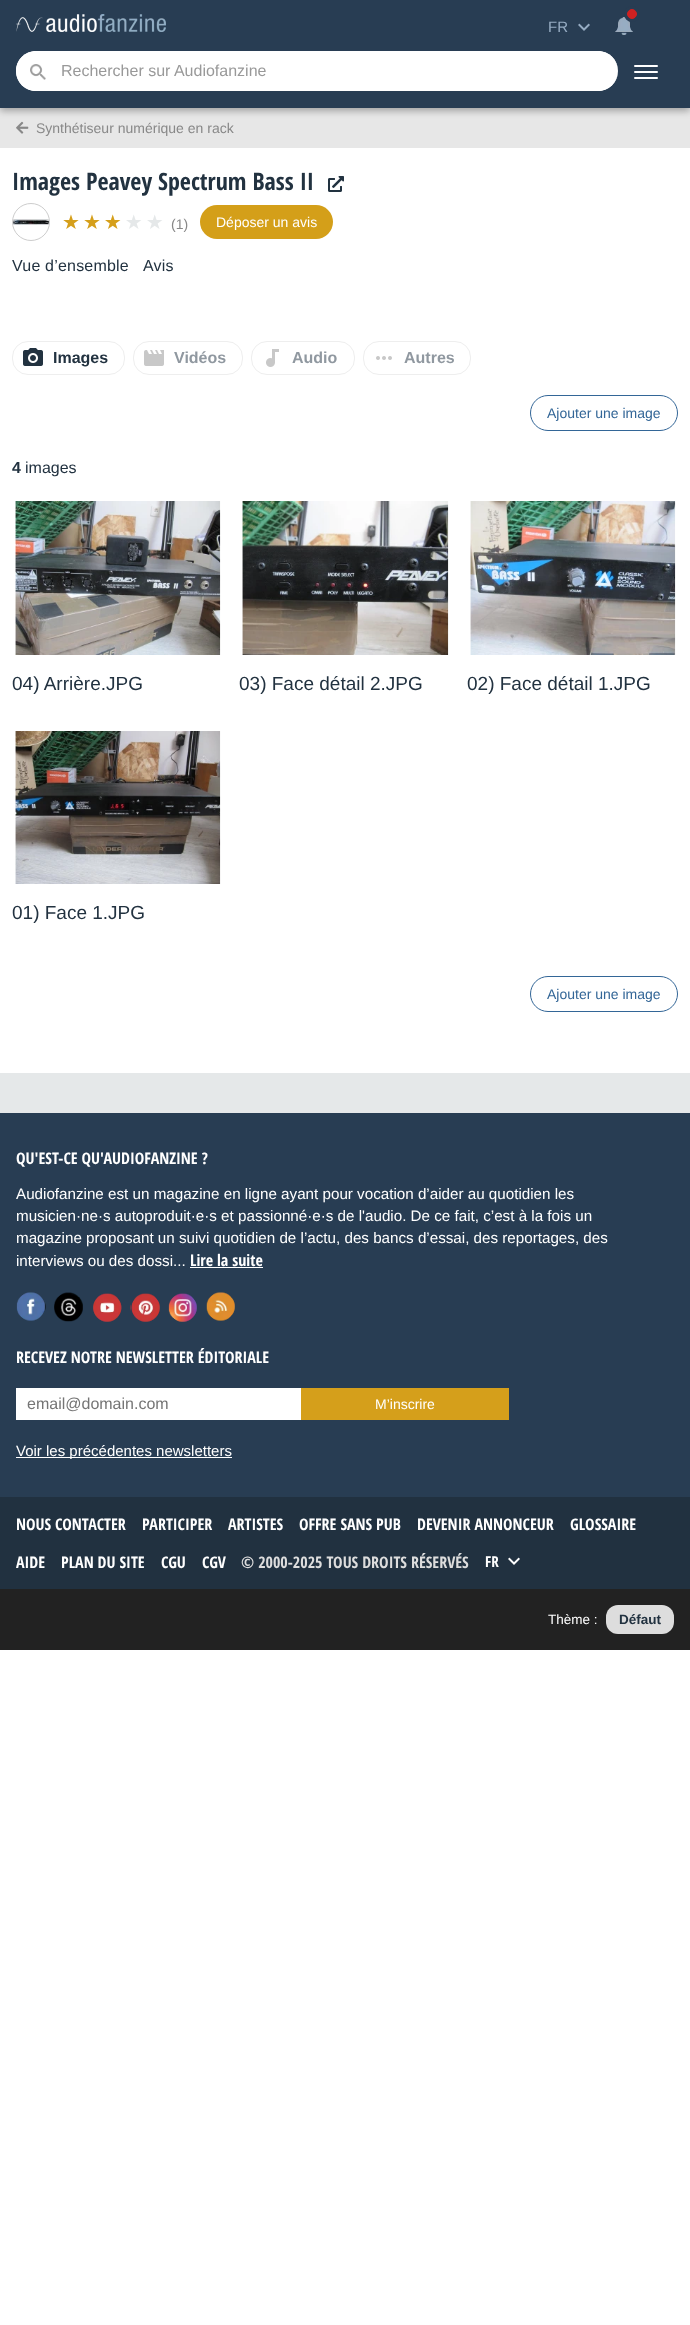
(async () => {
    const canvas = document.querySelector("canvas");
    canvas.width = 690;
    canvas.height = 2325;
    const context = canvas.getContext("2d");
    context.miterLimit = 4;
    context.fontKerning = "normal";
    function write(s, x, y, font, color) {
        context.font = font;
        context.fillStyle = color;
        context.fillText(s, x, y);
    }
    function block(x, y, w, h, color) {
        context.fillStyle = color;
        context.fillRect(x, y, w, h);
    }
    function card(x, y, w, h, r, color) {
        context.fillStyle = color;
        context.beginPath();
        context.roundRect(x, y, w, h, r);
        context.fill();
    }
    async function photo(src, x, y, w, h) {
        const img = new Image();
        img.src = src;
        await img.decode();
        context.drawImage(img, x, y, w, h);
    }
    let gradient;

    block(0, 0, 690, 2325, "rgb(255, 255, 255)");
    block(0, 108, 690, 40, "rgb(231, 231, 231)");
    await photo("media/5.png", 16, 121, 13, 13);
    context.fillStyle = "rgba(0, 0, 0, 0.3)";
    context.filter = "blur(3.5px)";
    context.beginPath();
    context.rect(0, 3, 690, 108);
    context.fill();
    context.filter = "none";
    block(0, 0, 690, 108, "rgb(40, 61, 83)");
    await photo("media/1.png", 16, 14, 150, 18);
    await photo("media/2.png", 615, 17, 18, 18);
    context.beginPath();
    context.arc(632, 14, 6.5, 0, Math.PI * 2);
    context.strokeStyle = "rgb(40, 61, 83)";
    context.lineWidth = 3;
    context.stroke();
    context.fillStyle = "rgb(208, 33, 33)";
    context.beginPath();
    context.arc(632, 14, 4.5, 0, Math.PI * 2);
    context.fill();
    context.strokeStyle = "rgb(208, 33, 33)";
    context.lineWidth = 1;
    context.stroke();
    await photo("media/3.png", 578, 23, 12, 8);
    write("FR", 548, 32, "15px Liberation Sans", "rgb(151, 173, 196)");
    card(16, 51, 602, 40, 20, "rgb(255, 255, 255)");
    context.beginPath();
    context.moveTo(36, 51);
    context.lineTo(598, 51);
    context.bezierCurveTo(609, 51, 618, 60, 618, 71);
    context.bezierCurveTo(618, 82, 609, 91, 598, 91);
    context.lineTo(36, 91);
    context.bezierCurveTo(25, 91, 16, 82, 16, 71);
    context.bezierCurveTo(16, 60, 25, 51, 36, 51);
    context.closePath();
    context.moveTo(36, 52);
    context.lineTo(598, 52);
    context.bezierCurveTo(609, 52, 618, 61, 618, 71);
    context.bezierCurveTo(618, 81, 609, 90, 598, 90);
    context.lineTo(36, 90);
    context.bezierCurveTo(26, 90, 17, 81, 17, 71);
    context.bezierCurveTo(17, 61, 26, 52, 36, 52);
    context.closePath();
    context.fill("evenodd");
    await photo("media/4.png", 30, 64, 16, 16);
    write("Rechercher sur Audiofanzine", 61, 76, "16px Liberation Sans", "rgb(153, 153, 153)");
    card(634, 77, 24, 2, 1, "rgb(255, 255, 255)");
    card(634, 65, 24, 2, 1, "rgb(255, 255, 255)");
    card(634, 71, 24, 2, 1, "rgb(255, 255, 255)");
    write("Synthétiseur numérique en rack", 36, 133, "14px Liberation Sans", "rgb(136, 136, 136)");
    write("Images Peavey Spectrum Bass II", 12, 190, "bold 24px Open Sans Condensed", "rgb(34, 50, 64)");
    await photo("media/6.png", 328, 176, 16, 16);
    context.beginPath();
    context.arc(31, 222, 18.5, 0, Math.PI * 2);
    context.strokeStyle = "rgb(205, 205, 205)";
    context.stroke();
    await photo("media/7.png", 13, 219, 36, 6);
    context.letterSpacing = "3px";
    context.font = "20px DejaVu Sans";
    gradient = context.createLinearGradient(62, 222, 167, 222);
    gradient.addColorStop(0.6, "rgb(213, 159, 27)");
    gradient.addColorStop(0.6, "rgb(229, 232, 233)");
    context.fillStyle = gradient;
    context.fillText("★★★★★", 62, 229);
    context.letterSpacing = "0px";
    write("(1)", 171, 229, "14px Liberation Sans", "rgb(136, 136, 136)");
    card(200, 205, 133, 34, 17, "rgb(212, 159, 25)");
    write("Déposer un avis", 216, 227, "14px Liberation Sans", "rgb(255, 255, 255)");
    context.letterSpacing = "0.2px";
    write("Vue d’ensemble", 12, 271, "16px Liberation Sans", "rgb(34, 50, 64)");
    write("Avis", 143, 271, "16px Liberation Sans", "rgb(34, 50, 64)");
    await photo("media/8.png", 23, 348, 20, 18);
    context.beginPath();
    context.roundRect(12.5, 341.5, 112, 33, 15.5);
    context.strokeStyle = "rgb(238, 238, 238)";
    context.stroke();
    context.letterSpacing = "0px";
    write("Images", 53, 363, "bold 16px Liberation Sans", "rgb(34, 50, 64)");
    await photo("media/9.png", 144, 350, 20, 16);
    context.beginPath();
    context.roundRect(133.5, 341.5, 109, 33, 15.5);
    context.stroke();
    write("Vidéos", 174, 363, "bold 16px Liberation Sans", "rgb(144, 152, 160)");
    await photo("media/10.png", 266, 349, 13, 18);
    context.beginPath();
    context.roundRect(251.5, 341.5, 103, 33, 15.5);
    context.stroke();
    write("Audio", 292, 363, "bold 16px Liberation Sans", "rgb(144, 152, 160)");
    await photo("media/11.png", 376, 356, 16, 4);
    context.beginPath();
    context.roundRect(363.5, 341.5, 107, 33, 15.5);
    context.stroke();
    write("Autres", 404, 363, "bold 16px Liberation Sans", "rgb(144, 152, 160)");
    context.beginPath();
    context.roundRect(530.5, 395.5, 147, 35, 17.5);
    context.strokeStyle = "rgb(51, 102, 151)";
    context.stroke();
    write("Ajouter une image", 547, 418, "14px Liberation Sans", "rgb(51, 102, 151)");
    write("4", 12, 473, "bold 16px Liberation Sans", "rgb(34, 50, 64)");
    write("images", 25, 473, "16px Liberation Sans", "rgb(34, 50, 64)");
    await photo("media/12.png", 15, 501, 206, 154);
    write("04) Arrière.JPG", 12, 690, "19px Liberation Sans", "rgb(34, 50, 64)");
    await photo("media/13.png", 242, 501, 207, 154);
    write("03) Face détail 2.JPG", 239, 690, "19px Liberation Sans", "rgb(34, 50, 64)");
    await photo("media/14.png", 470, 501, 206, 154);
    write("02) Face détail 1.JPG", 467, 690, "19px Liberation Sans", "rgb(34, 50, 64)");
    await photo("media/15.png", 15, 731, 206, 153);
    write("01) Face 1.JPG", 12, 919, "19px Liberation Sans", "rgb(34, 50, 64)");
    context.beginPath();
    context.roundRect(530.5, 976.5, 147, 35, 17.5);
    context.stroke();
    write("Ajouter une image", 547, 999, "14px Liberation Sans", "rgb(51, 102, 151)");
    block(0, 1073, 690, 40, "rgb(229, 232, 233)");
    block(0, 1113, 690, 384, "rgb(40, 61, 83)");
    write("QU'EST-CE QU'AUDIOFANZINE ?", 16, 1164, "bold 16px Open Sans Condensed", "rgb(255, 255, 255)");
    write("Audiofanzine est un magazine en ligne ayant pour vocation d’aider au quotidien les", 16, 1199, "15.2px Liberation Sans", "rgb(255, 255, 255)");
    write("musicien·ne·s autoproduit·e·s et passionné·e·s de l'audio. De ce fait, c’est à la fois un", 16, 1221, "15.2px Liberation Sans", "rgb(255, 255, 255)");
    write("magazine proposant un suivi quotidien de l’actu, des bancs d’essai, des reportages, des", 16, 1243, "15.2px Liberation Sans", "rgb(255, 255, 255)");
    write("interviews ou des dossi...", 16, 1266, "15.2px Liberation Sans", "rgb(255, 255, 255)");
    write("Lire la suite", 190, 1266, "bold 16px Open Sans Condensed", "rgb(255, 255, 255)");
    block(190, 1267, 73, 1, "rgb(255, 255, 255)");
    await photo("media/16.png", 16, 1292, 30, 29);
    await photo("media/17.png", 54, 1292, 29, 30);
    await photo("media/18.png", 93, 1293, 29, 29);
    await photo("media/19.png", 130, 1293, 30, 29);
    await photo("media/20.png", 168, 1293, 29, 29);
    await photo("media/21.png", 206, 1292, 29, 29);
    write("RECEVEZ NOTRE NEWSLETTER ÉDITORIALE", 16, 1363, "bold 16px Open Sans Condensed", "rgb(255, 255, 255)");
    block(16, 1388, 285, 32, "rgb(255, 255, 255)");
    write("email@domain.com", 27, 1409, "16px Liberation Sans", "rgb(117, 117, 117)");
    block(301, 1388, 208, 32, "rgb(213, 159, 27)");
    write("M’inscrire", 375, 1409, "14px Liberation Sans", "rgb(255, 255, 255)");
    block(16, 1457, 216, 1, "rgb(255, 255, 255)");
    write("Voir les précédentes newsletters", 16, 1456, "15px Liberation Sans", "rgb(255, 255, 255)");
    block(0, 1497, 690, 92, "rgb(33, 49, 64)");
    write("NOUS CONTACTER", 16, 1530, "bold 16px Open Sans Condensed", "rgb(255, 255, 255)");
    write("PARTICIPER", 142, 1530, "bold 16px Open Sans Condensed", "rgb(255, 255, 255)");
    write("ARTISTES", 228, 1530, "bold 16px Open Sans Condensed", "rgb(255, 255, 255)");
    write("OFFRE SANS PUB", 299, 1530, "bold 16px Open Sans Condensed", "rgb(255, 255, 255)");
    write("DEVENIR ANNONCEUR", 417, 1530, "bold 16px Open Sans Condensed", "rgb(255, 255, 255)");
    write("GLOSSAIRE", 570, 1530, "bold 16px Open Sans Condensed", "rgb(255, 255, 255)");
    write("AIDE", 16, 1568, "bold 16px Open Sans Condensed", "rgb(255, 255, 255)");
    write("PLAN DU SITE", 61, 1568, "bold 16px Open Sans Condensed", "rgb(255, 255, 255)");
    write("CGU", 161, 1568, "bold 16px Open Sans Condensed", "rgb(255, 255, 255)");
    write("CGV", 202, 1568, "bold 16px Open Sans Condensed", "rgb(255, 255, 255)");
    write("© 2000-2025 TOUS DROITS RÉSERVÉS", 241, 1568, "bold 16px Open Sans Condensed", "rgb(221, 221, 221)");
    await photo("media/22.png", 508, 1557, 12, 8);
    write("FR", 485, 1567, "bold 15px Open Sans Condensed", "rgb(255, 255, 255)");
    block(0, 1589, 690, 61, "rgb(34, 34, 34)");
    write("Thème :", 548, 1624, "13.5px Liberation Sans", "rgb(255, 255, 255)");
    card(606, 1605, 68, 29, 12, "rgb(221, 221, 221)");
    write("Défaut", 619, 1624, "bold 13.5px Liberation Sans", "rgb(34, 50, 64)");
})();
